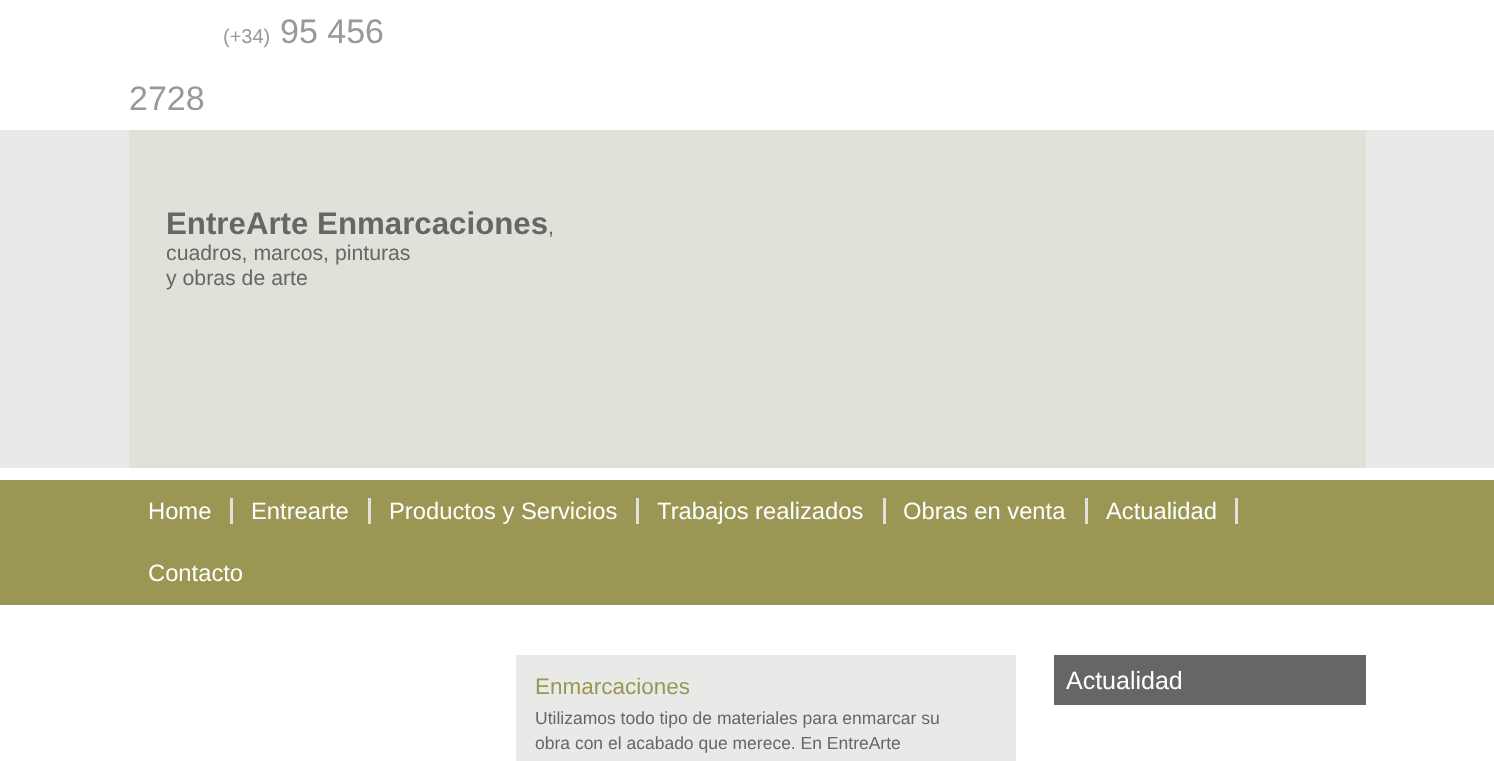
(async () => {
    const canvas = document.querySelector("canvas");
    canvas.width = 1494;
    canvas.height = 761;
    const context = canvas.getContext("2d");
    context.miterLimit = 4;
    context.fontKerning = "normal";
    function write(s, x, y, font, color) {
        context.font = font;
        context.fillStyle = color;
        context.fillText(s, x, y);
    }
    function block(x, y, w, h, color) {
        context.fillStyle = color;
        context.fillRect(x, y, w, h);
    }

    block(0, 0, 1494, 761, "rgb(255, 255, 255)");
    write("(+34)", 223, 43, "20px Liberation Sans", "rgb(153, 153, 153)");
    write("95 456", 280, 43, "34px Liberation Sans", "rgb(153, 153, 153)");
    write("2728", 129, 110, "34px Liberation Sans", "rgb(153, 153, 153)");
    block(0, 130, 129, 338, "rgb(233, 234, 232)");
    block(129, 130, 1237, 338, "rgb(225, 225, 217)");
    write("EntreArte Enmarcaciones", 166, 234, "bold 31.25px Liberation Sans", "rgb(102, 102, 102)");
    write(",", 548, 234, "21.25px Liberation Sans", "rgb(102, 102, 102)");
    write("cuadros, marcos, pinturas", 166, 260, "21.25px Liberation Sans", "rgb(102, 102, 102)");
    write("y obras de arte", 166, 285, "21.25px Liberation Sans", "rgb(102, 102, 102)");
    block(1366, 130, 128, 338, "rgb(233, 234, 232)");
    block(0, 480, 1494, 125, "rgb(154, 151, 84)");
    write("Home", 148, 519, "23.75px Liberation Sans", "rgb(255, 255, 255)");
    block(230, 498, 3, 26, "rgb(225, 225, 217)");
    write("Entrearte", 251, 519, "23.75px Liberation Sans", "rgb(255, 255, 255)");
    block(368, 498, 3, 26, "rgb(225, 225, 217)");
    write("Productos y Servicios", 389, 519, "23.75px Liberation Sans", "rgb(255, 255, 255)");
    block(636, 498, 3, 26, "rgb(225, 225, 217)");
    write("Trabajos realizados", 657, 519, "23.75px Liberation Sans", "rgb(255, 255, 255)");
    block(883, 498, 3, 26, "rgb(225, 225, 217)");
    write("Obras en venta", 903, 519, "23.75px Liberation Sans", "rgb(255, 255, 255)");
    block(1085, 498, 3, 26, "rgb(225, 225, 217)");
    write("Actualidad", 1106, 519, "23.75px Liberation Sans", "rgb(255, 255, 255)");
    block(1235, 498, 3, 26, "rgb(225, 225, 217)");
    write("Contacto", 148, 581, "23.75px Liberation Sans", "rgb(255, 255, 255)");
    block(516, 655, 500, 106, "rgb(233, 234, 232)");
    write("Enmarcaciones", 535, 694, "22.5px Liberation Sans", "rgb(154, 151, 84)");
    write("Utilizamos todo tipo de materiales para enmarcar su", 535, 724, "17.5px Liberation Sans", "rgb(102, 102, 102)");
    write("obra con el acabado que merece. En EntreArte", 535, 749, "17.5px Liberation Sans", "rgb(102, 102, 102)");
    block(1054, 655, 312, 50, "rgb(102, 102, 102)");
    write("Actualidad", 1066, 689, "25px Liberation Sans", "rgb(255, 255, 255)");
})();
